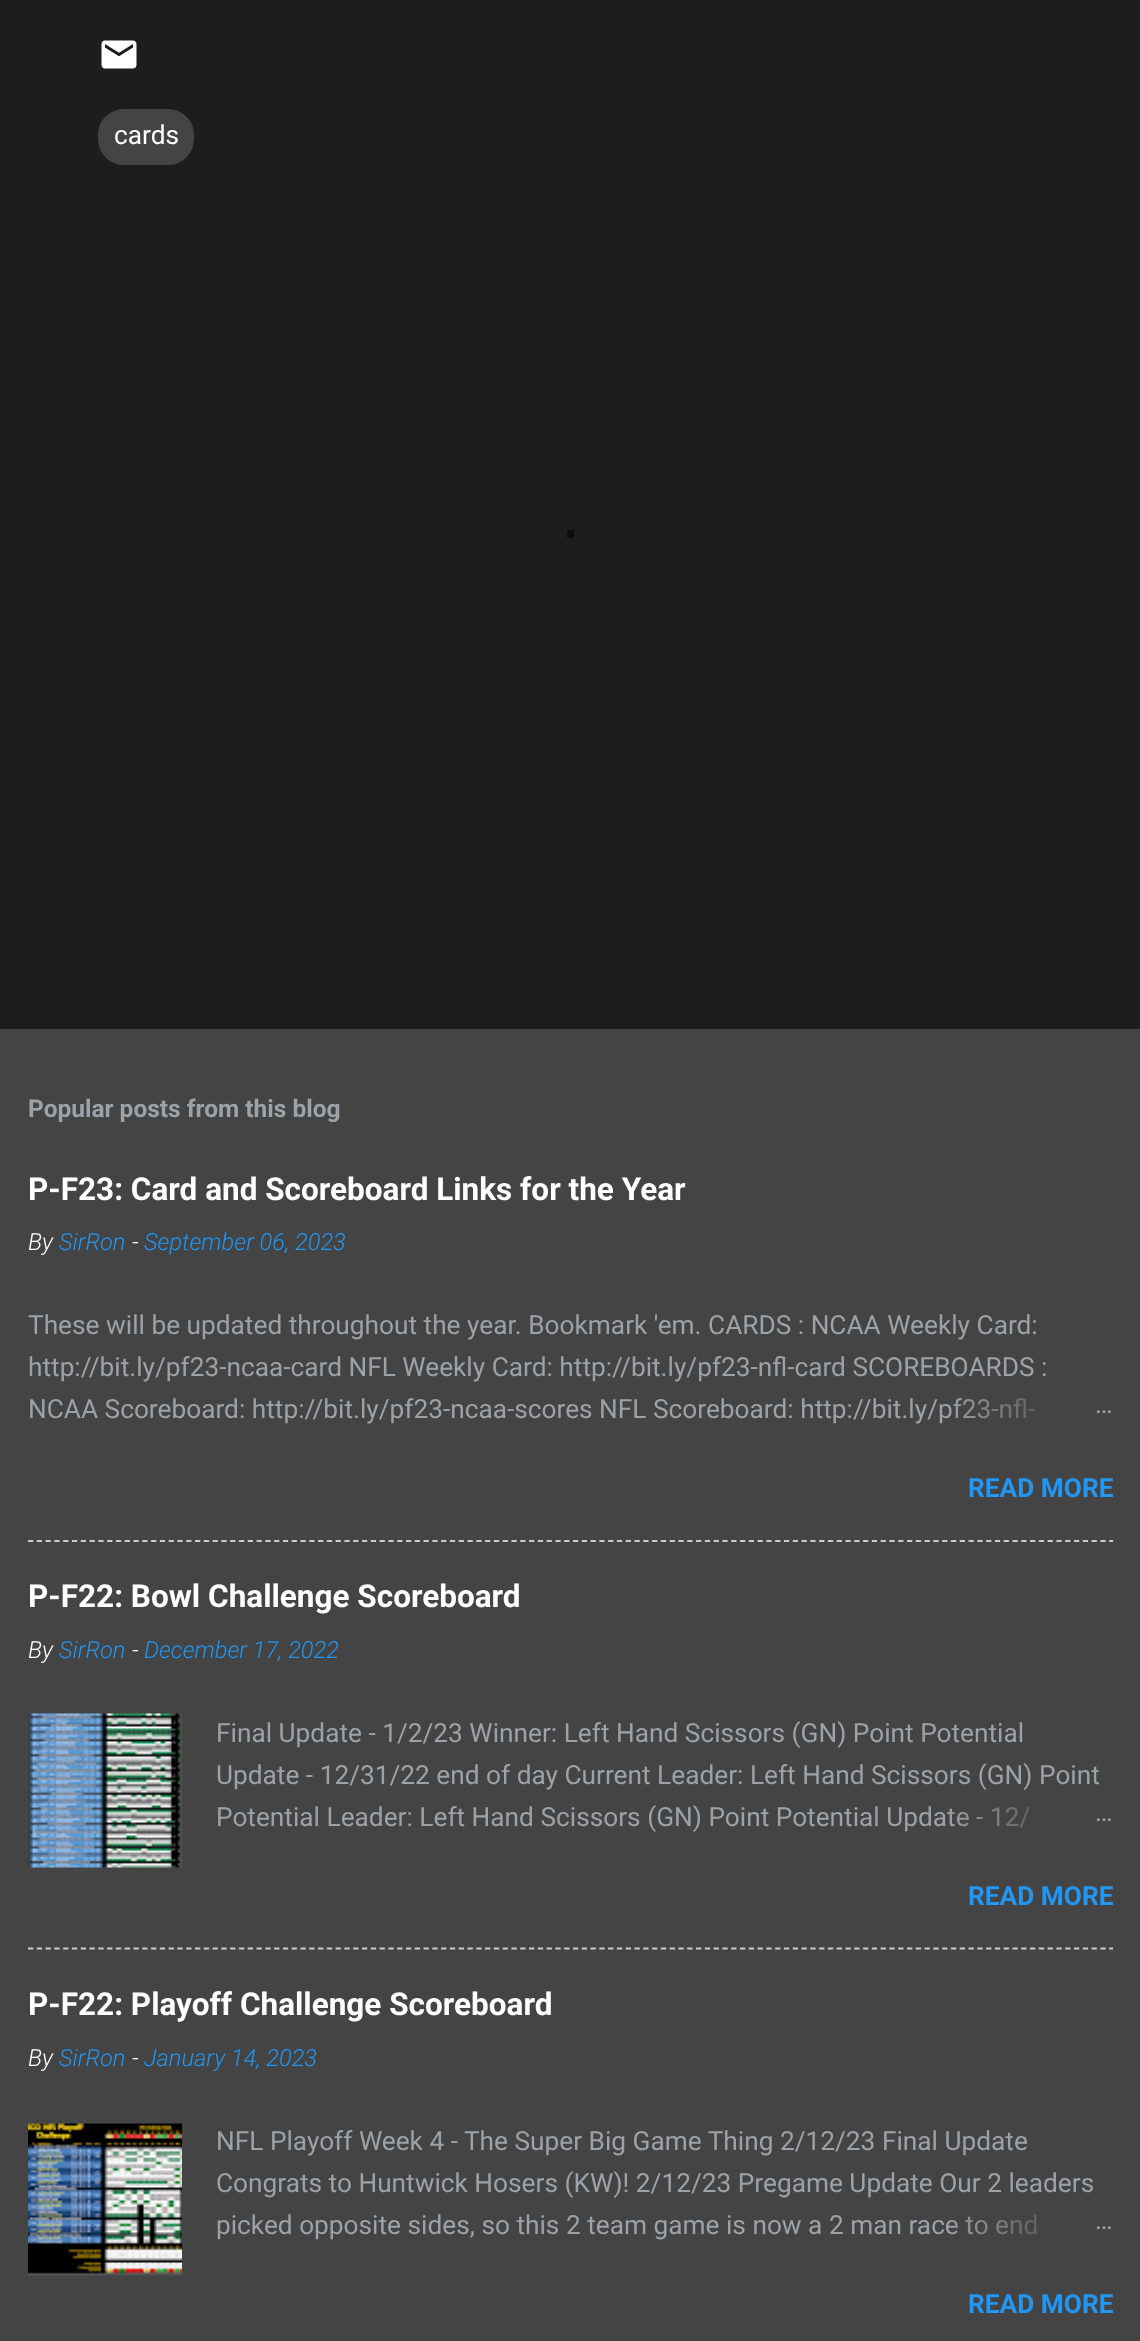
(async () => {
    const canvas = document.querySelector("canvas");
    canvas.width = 1140;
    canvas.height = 2341;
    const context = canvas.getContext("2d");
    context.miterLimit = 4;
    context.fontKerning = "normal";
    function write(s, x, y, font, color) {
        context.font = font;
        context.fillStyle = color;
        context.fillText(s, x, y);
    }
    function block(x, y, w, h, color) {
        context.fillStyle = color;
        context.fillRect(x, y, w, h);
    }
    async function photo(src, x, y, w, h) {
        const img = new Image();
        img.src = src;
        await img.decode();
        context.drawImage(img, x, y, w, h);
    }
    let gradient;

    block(0, 0, 1140, 2341, "rgb(68, 68, 68)");
    block(0, 0, 1140, 1029, "rgb(29, 29, 29)");
    await photo("media/1.png", 101, 40, 36, 29);
    context.fillStyle = "rgb(68, 68, 68)";
    context.beginPath();
    context.roundRect(99, 110, 94, 54, 25);
    context.fill();
    context.strokeStyle = "rgb(68, 68, 68)";
    context.lineWidth = 2;
    context.stroke();
    write("cards", 114, 144, "26.25px Roboto", "rgb(255, 255, 255)");
    write("Popular posts from this blog", 28, 1117, "bold 24.5px Roboto", "rgb(155, 162, 168)");
    write("P-F23: Card and Scoreboard Links for the Year", 28, 1200, "bold 31.5px Roboto", "rgb(255, 255, 255)");
    write("By", 28, 1250, "italic 300 23.6px Roboto", "rgb(255, 255, 255)");
    write("SirRon", 59, 1250, "italic 300 23.6px Roboto", "rgb(33, 150, 243)");
    write("-", 132, 1250, "italic 300 23.6px Roboto", "rgb(255, 255, 255)");
    write("September 06, 2023", 144, 1250, "italic 300 23.6px Roboto", "rgb(33, 150, 243)");
    write("These will be updated throughout the year. Bookmark 'em. CARDS : NCAA Weekly Card:", 28, 1334, "26.25px Roboto", "rgb(155, 162, 168)");
    write("http://bit.ly/pf23-ncaa-card NFL Weekly Card: http://bit.ly/pf23-nfl-card SCOREBOARDS :", 28, 1376, "26.25px Roboto", "rgb(155, 162, 168)");
    write("NCAA Scoreboard: http://bit.ly/pf23-ncaa-scores NFL Scoreboard: http://bit.ly/pf23-nfl-", 28, 1418, "26.25px Roboto", "rgb(155, 162, 168)");
    gradient = context.createLinearGradient(1113, 1411, 945, 1411);
    gradient.addColorStop(0, "rgb(68, 68, 68)");
    gradient.addColorStop(0.2, "rgb(68, 68, 68)");
    gradient.addColorStop(1, "rgba(68, 68, 68, 0)");
    context.fillStyle = gradient;
    context.fillRect(948, 1398, 87, 21);
    write("…", 1095, 1413, "26.25px Roboto", "rgb(155, 162, 168)");
    write("READ MORE", 968, 1497, "bold 26.25px Roboto", "rgb(33, 150, 243)");
    context.beginPath();
    context.moveTo(28, 1541);
    context.lineTo(1113, 1541);
    context.strokeStyle = "rgb(204, 204, 204)";
    context.lineWidth = 1.8;
    context.setLineDash([5.25, 3.54]);
    context.stroke();
    write("P-F22: Bowl Challenge Scoreboard", 28, 1607, "bold 31.5px Roboto", "rgb(255, 255, 255)");
    write("By", 28, 1658, "italic 300 23.6px Roboto", "rgb(255, 255, 255)");
    write("SirRon", 59, 1658, "italic 300 23.6px Roboto", "rgb(33, 150, 243)");
    write("-", 132, 1658, "italic 300 23.6px Roboto", "rgb(255, 255, 255)");
    write("December 17, 2022", 144, 1658, "italic 300 23.6px Roboto", "rgb(33, 150, 243)");
    await photo("media/2.png", 28, 1713, 154, 155);
    write("Final Update - 1/2/23 Winner: Left Hand Scissors (GN) Point Potential", 216, 1742, "26.25px Roboto", "rgb(155, 162, 168)");
    write("Update - 12/31/22 end of day Current Leader: Left Hand Scissors (GN) Point", 216, 1784, "26.25px Roboto", "rgb(155, 162, 168)");
    write("Potential Leader: Left Hand Scissors (GN) Point Potential Update - 12/", 216, 1826, "26.25px Roboto", "rgb(155, 162, 168)");
    gradient = context.createLinearGradient(1113, 1818, 945, 1818);
    gradient.addColorStop(0, "rgb(68, 68, 68)");
    gradient.addColorStop(0.2, "rgb(68, 68, 68)");
    gradient.addColorStop(1, "rgba(68, 68, 68, 0)");
    context.fillStyle = gradient;
    context.fillRect(949, 1807, 81, 21);
    write("…", 1095, 1821, "26.25px Roboto", "rgb(155, 162, 168)");
    write("READ MORE", 968, 1905, "bold 26.25px Roboto", "rgb(33, 150, 243)");
    context.beginPath();
    context.moveTo(28, 1948.5);
    context.lineTo(1113, 1948.5);
    context.stroke();
    write("P-F22: Playoff Challenge Scoreboard", 28, 2015, "bold 31.5px Roboto", "rgb(255, 255, 255)");
    write("By", 28, 2066, "italic 300 23.6px Roboto", "rgb(255, 255, 255)");
    write("SirRon", 59, 2066, "italic 300 23.6px Roboto", "rgb(33, 150, 243)");
    write("-", 132, 2066, "italic 300 23.6px Roboto", "rgb(255, 255, 255)");
    write("January 14, 2023", 144, 2066, "italic 300 23.6px Roboto", "rgb(33, 150, 243)");
    await photo("media/3.png", 28, 2121, 154, 155);
    write("NFL Playoff Week 4 - The Super Big Game Thing 2/12/23 Final Update", 216, 2150, "26.25px Roboto", "rgb(155, 162, 168)");
    write("Congrats to Huntwick Hosers (KW)! 2/12/23 Pregame Update Our 2 leaders", 216, 2192, "26.25px Roboto", "rgb(155, 162, 168)");
    write("picked opposite sides, so this 2 team game is now a 2 man race to end", 216, 2234, "26.25px Roboto", "rgb(155, 162, 168)");
    gradient = context.createLinearGradient(1113, 2226, 945, 2226);
    gradient.addColorStop(0, "rgb(68, 68, 68)");
    gradient.addColorStop(0.2, "rgb(68, 68, 68)");
    gradient.addColorStop(1, "rgba(68, 68, 68, 0)");
    context.fillStyle = gradient;
    context.fillRect(948, 2214, 89, 21);
    write("…", 1095, 2229, "26.25px Roboto", "rgb(155, 162, 168)");
    write("READ MORE", 968, 2313, "bold 26.25px Roboto", "rgb(33, 150, 243)");
    block(567, 530, 7, 8, "rgb(13, 13, 13)");
})();
